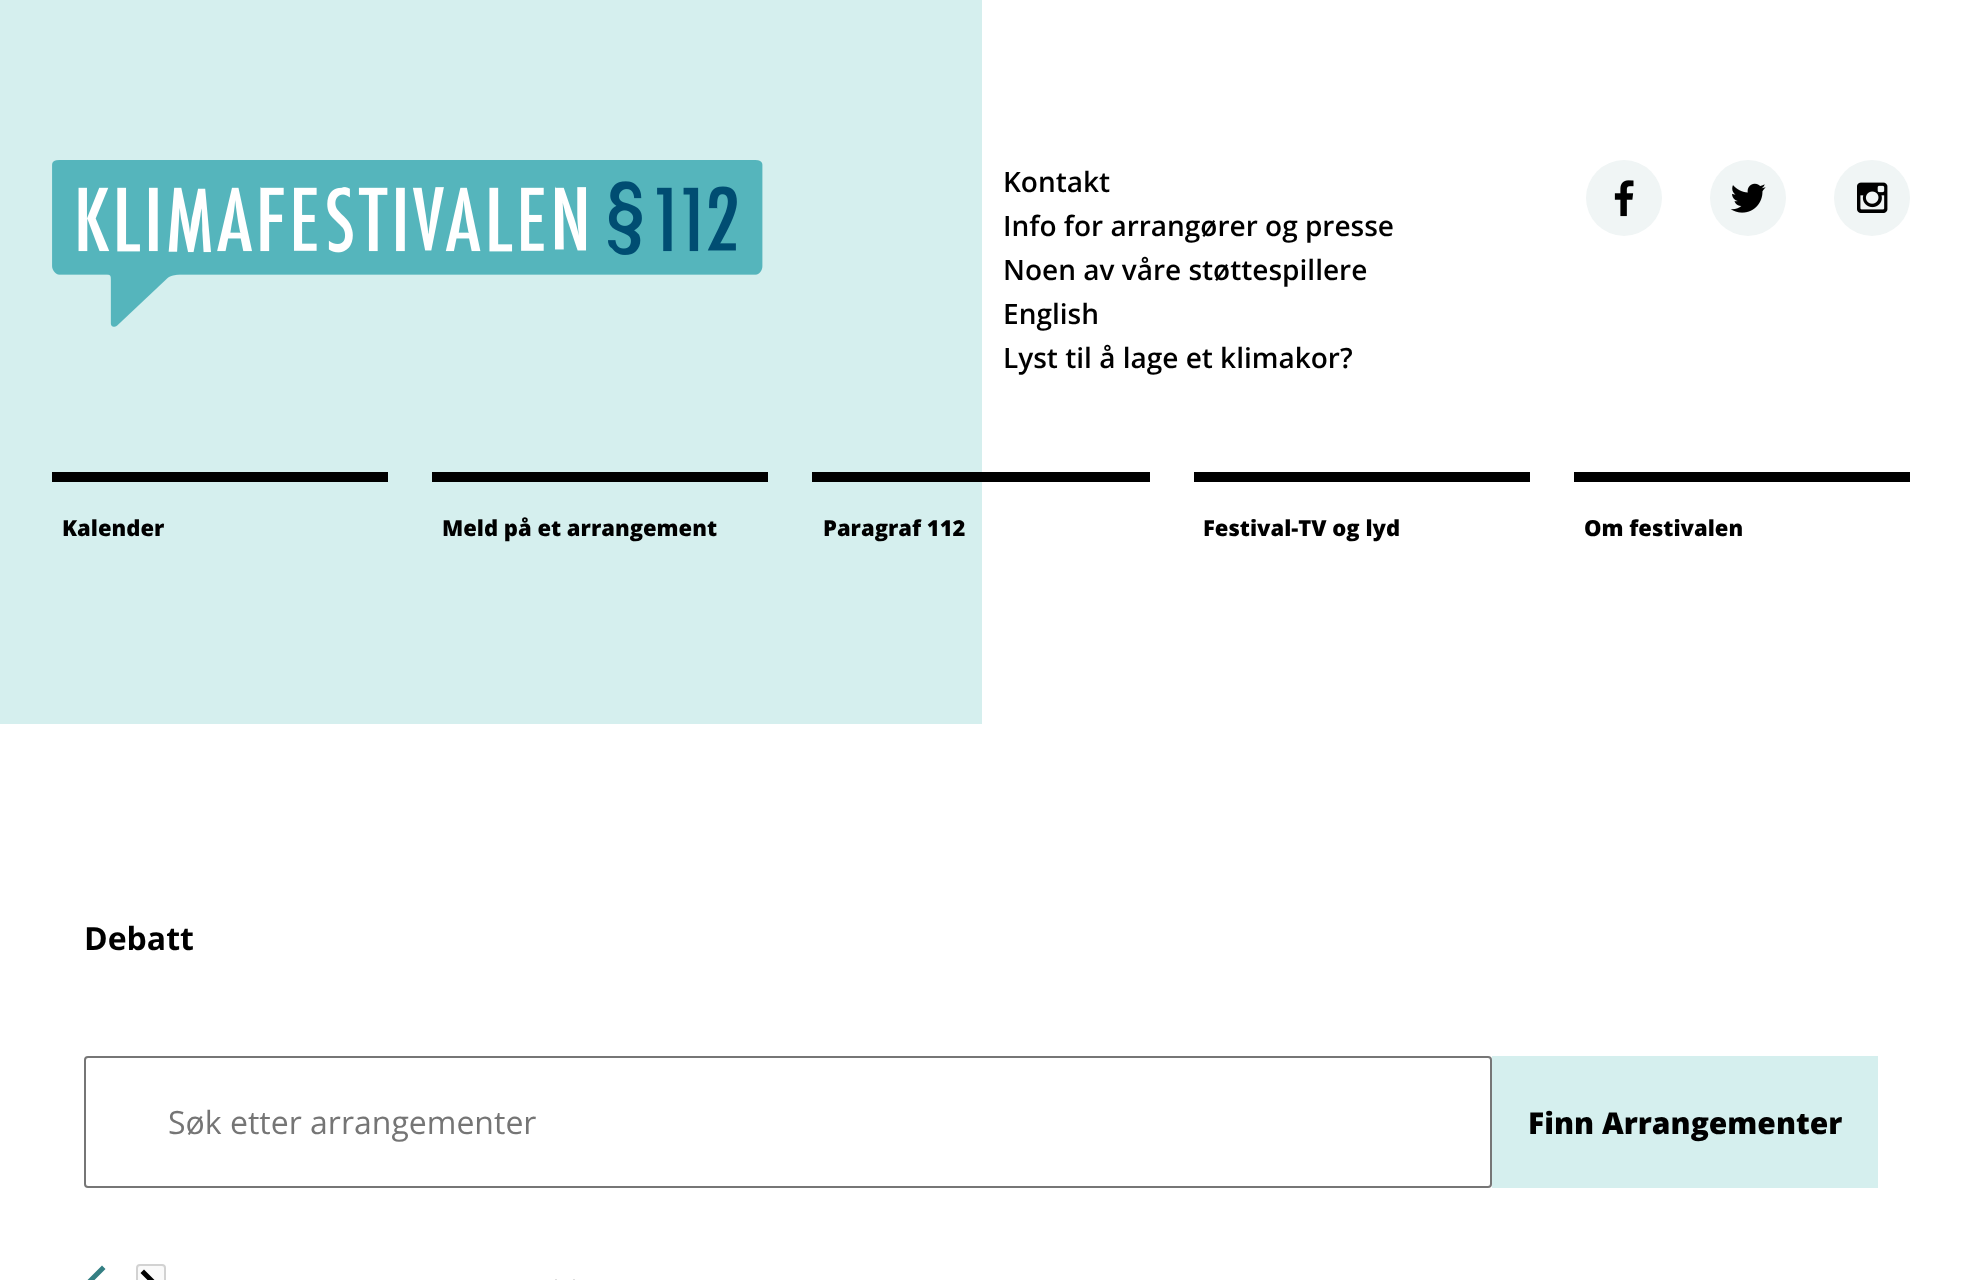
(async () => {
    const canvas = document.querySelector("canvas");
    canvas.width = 1961;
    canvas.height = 1280;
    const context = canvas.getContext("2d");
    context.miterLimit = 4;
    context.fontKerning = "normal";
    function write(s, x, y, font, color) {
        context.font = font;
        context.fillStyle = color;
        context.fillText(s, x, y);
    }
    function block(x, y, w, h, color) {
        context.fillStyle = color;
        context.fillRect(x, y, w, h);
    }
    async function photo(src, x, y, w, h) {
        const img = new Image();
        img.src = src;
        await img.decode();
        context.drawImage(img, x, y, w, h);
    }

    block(0, 0, 1961, 1280, "rgb(255, 255, 255)");
    block(0, 0, 982, 724, "rgb(213, 239, 238)");
    await photo("media/1.png", 52, 160, 711, 167);
    write("Kontakt", 1003, 192, "600 28px Open Sans", "rgb(0, 0, 0)");
    write("Info for arrangører og presse", 1003, 236, "600 28px Open Sans", "rgb(0, 0, 0)");
    write("Noen av våre støttespillere", 1003, 280, "600 28px Open Sans", "rgb(0, 0, 0)");
    write("English", 1003, 324, "600 28px Open Sans", "rgb(0, 0, 0)");
    write("Lyst til å lage et klimakor?", 1003, 368, "600 28px Open Sans", "rgb(0, 0, 0)");
    context.fillStyle = "rgb(240, 245, 245)";
    context.beginPath();
    context.arc(1624, 198, 38, 0, Math.PI * 2);
    context.fill();
    await photo("media/2.png", 1614, 180, 20, 37);
    context.beginPath();
    context.arc(1748, 198, 38, 0, Math.PI * 2);
    context.fill();
    await photo("media/3.png", 1730, 183, 36, 30);
    context.beginPath();
    context.arc(1872, 198, 38, 0, Math.PI * 2);
    context.fill();
    await photo("media/4.png", 1857, 182, 31, 31);
    block(52, 472, 336, 10, "rgb(0, 0, 0)");
    write("Kalender", 62, 536, "800 22px Open Sans", "rgb(0, 0, 0)");
    block(432, 472, 336, 10, "rgb(0, 0, 0)");
    write("Meld på et arrangement", 442, 536, "800 22px Open Sans", "rgb(0, 0, 0)");
    block(812, 472, 338, 10, "rgb(0, 0, 0)");
    write("Paragraf 112", 823, 536, "800 22px Open Sans", "rgb(0, 0, 0)");
    block(1194, 472, 336, 10, "rgb(0, 0, 0)");
    write("Festival-TV og lyd", 1203, 536, "800 22px Open Sans", "rgb(0, 0, 0)");
    block(1574, 472, 336, 10, "rgb(0, 0, 0)");
    write("Om festivalen", 1584, 536, "800 22px Open Sans", "rgb(0, 0, 0)");
    write("Debatt", 84, 950, "bold 32px Open Sans", "rgb(0, 0, 0)");
    context.beginPath();
    context.roundRect(85, 1057, 1406, 130, 3);
    context.strokeStyle = "rgb(118, 118, 118)";
    context.lineWidth = 2;
    context.stroke();
    write("Søk etter arrangementer", 168, 1134, "32px Open Sans", "rgb(117, 117, 117)");
    block(1492, 1056, 386, 132, "rgb(213, 239, 238)");
    write("Finn Arrangementer", 1528, 1134, "800 30px Open Sans", "rgb(0, 0, 0)");
    context.fillStyle = "rgb(52, 127, 131)";
    context.beginPath();
    context.moveTo(105.5, 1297);
    context.lineTo(102, 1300.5);
    context.lineTo(84.5, 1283);
    context.lineTo(102, 1265.5);
    context.lineTo(105.5, 1269);
    context.lineTo(91.5, 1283);
    context.closePath();
    context.fill();
    context.fillStyle = "rgb(250, 250, 250)";
    context.beginPath();
    context.roundRect(137, 1265, 28, 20, 3);
    context.fill();
    context.strokeStyle = "rgb(210, 210, 210)";
    context.stroke();
    context.fillStyle = "rgb(0, 0, 0)";
    context.beginPath();
    context.moveTo(140.5, 1273);
    context.lineTo(144, 1269.5);
    context.lineTo(161.5, 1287);
    context.lineTo(144, 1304.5);
    context.lineTo(140.5, 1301);
    context.lineTo(154.5, 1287);
    context.closePath();
    context.fill();
    context.beginPath();
    context.moveTo(556, 1279.5);
    context.lineTo(565, 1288.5);
    context.lineTo(574, 1279.5);
    context.lineTo(576, 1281.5);
    context.lineTo(565, 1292.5);
    context.lineTo(554, 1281.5);
    context.closePath();
    context.fill("evenodd");
})();
